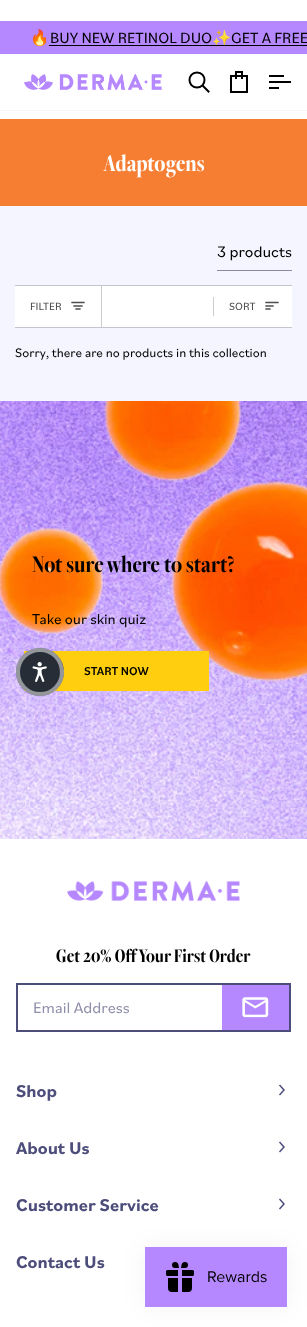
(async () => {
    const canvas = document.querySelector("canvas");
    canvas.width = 307;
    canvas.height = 1327;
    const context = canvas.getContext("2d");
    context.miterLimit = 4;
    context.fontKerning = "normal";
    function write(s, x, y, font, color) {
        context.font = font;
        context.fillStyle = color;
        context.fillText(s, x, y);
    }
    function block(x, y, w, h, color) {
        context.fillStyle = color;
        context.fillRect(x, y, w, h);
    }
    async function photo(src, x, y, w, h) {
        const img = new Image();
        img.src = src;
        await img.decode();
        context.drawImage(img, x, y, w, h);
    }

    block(0, 0, 307, 1327, "rgb(255, 255, 255)");
    block(0, 21, 307, 33, "rgb(182, 136, 255)");
    write("🔥", 30, 43, "15.5px Noto Color Emoji", "rgb(0, 0, 0)");
    write("BUY NEW RETINOL DUO", 50, 43, "15.5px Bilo", "rgb(0, 0, 0)");
    write("✨", 212, 43, "15.5px Noto Color Emoji", "rgb(0, 0, 0)");
    write("GET A FREE", 231, 43, "15.5px Bilo", "rgb(0, 0, 0)");
    block(49, 45, 258, 1, "rgb(0, 0, 0)");
    block(0, 110, 307, 1, "rgb(247, 245, 244)");
    await photo("media/1.png", 24, 74, 138, 16);
    context.beginPath();
    context.moveTo(197, 87.5);
    context.bezierCurveTo(207, 87.5, 207, 72.5, 197, 72.5);
    context.bezierCurveTo(187, 72.5, 187, 87.5, 197, 87.5);
    context.closePath();
    context.moveTo(208.5, 91.5);
    context.lineTo(203, 86);
    context.strokeStyle = "rgb(0, 0, 0)";
    context.lineWidth = 2;
    context.lineCap = "square";
    context.stroke();
    context.beginPath();
    context.moveTo(231, 76);
    context.lineTo(247, 76);
    context.lineTo(247, 92);
    context.lineTo(231, 92);
    context.closePath();
    context.moveTo(236, 79);
    context.lineTo(236, 72);
    context.lineTo(242, 72);
    context.lineTo(242, 79);
    context.lineCap = "butt";
    context.stroke();
    context.beginPath();
    context.moveTo(283, 76);
    context.lineTo(270, 76);
    context.moveTo(290, 82);
    context.lineTo(270, 82);
    context.moveTo(278, 88);
    context.lineTo(270, 88);
    context.lineCap = "square";
    context.stroke();
    block(0, 119, 307, 87, "rgb(245, 126, 51)");
    write("Adaptogens", 103, 171, "bold 25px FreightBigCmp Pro", "rgb(255, 255, 255)");
    block(0, 206, 307, 195, "rgb(245, 245, 255)");
    block(217, 270, 75, 1, "rgb(141, 136, 163)");
    write("3 products", 217, 257, "16px Bilo", "rgb(0, 0, 0)");
    block(15, 285, 277, 1, "rgb(196, 196, 204)");
    block(15, 327, 277, 1, "rgb(196, 196, 204)");
    block(15, 286, 277, 41, "rgb(255, 255, 255)");
    block(101, 286, 1, 41, "rgb(204, 204, 204)");
    write("FILTER", 30, 310, "11px Bilo", "rgb(77, 77, 77)");
    context.beginPath();
    context.moveTo(84, 302.5);
    context.lineTo(72, 302.5);
    context.moveTo(82, 306);
    context.lineTo(74, 306);
    context.moveTo(80, 309);
    context.lineTo(76, 309);
    context.strokeStyle = "rgb(77, 77, 77)";
    context.lineWidth = 1.3;
    context.stroke();
    block(213, 297, 1, 19, "rgb(204, 204, 204)");
    write("SORT", 229, 310, "11px Bilo", "rgb(77, 77, 77)");
    context.beginPath();
    context.moveTo(278, 302.5);
    context.lineTo(266, 302.5);
    context.moveTo(273, 306);
    context.lineTo(266, 306);
    context.moveTo(270, 309);
    context.lineTo(266, 309);
    context.stroke();
    write("Sorry, there are no products in this collection", 15, 357, "13px Bilo", "rgb(0, 0, 0)");
    await photo("media/2.png", 0, 401, 307, 438);
    write("Not sure where to start?", 32, 572, "bold 25px FreightBigCmp Pro", "rgb(0, 0, 0)");
    write("Take our skin quiz", 32, 624, "15px Bilo", "rgb(0, 0, 0)");
    block(24, 651, 185, 40, "rgb(255, 207, 15)");
    write("START NOW", 84, 675, "500 12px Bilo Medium", "rgb(0, 0, 0)");
    context.fillStyle = "rgb(39, 45, 54)";
    context.beginPath();
    context.arc(40, 672, 24, 0, Math.PI * 2);
    context.fill();
    context.beginPath();
    context.arc(40, 672, 22, 0, Math.PI * 2);
    context.strokeStyle = "rgba(255, 255, 255, 0.5)";
    context.lineWidth = 4;
    context.stroke();
    await photo("media/3.png", 32, 662, 15, 20);
    await photo("media/4.png", 67, 880, 173, 22);
    write("Get 20% Off Your First Order", 56, 962, "bold 20px FreightBigCmp Pro", "rgb(0, 0, 0)");
    context.strokeStyle = "rgb(77, 77, 123)";
    context.lineWidth = 2;
    context.strokeRect(17, 984, 273, 47);
    write("Email Address", 33, 1013, "16px Bilo", "rgb(143, 143, 172)");
    block(222, 985, 67, 45, "rgb(182, 136, 255)");
    await photo("media/5.png", 242, 997, 27, 21);
    write("Shop", 16, 1097, "bold 18px Bilo", "rgb(77, 77, 123)");
    context.beginPath();
    context.moveTo(280, 1094.5);
    context.lineTo(284, 1090);
    context.lineTo(280, 1085.5);
    context.lineWidth = 1.5;
    context.stroke();
    write("About Us", 16, 1154, "bold 18px Bilo", "rgb(77, 77, 123)");
    context.beginPath();
    context.moveTo(280, 1151.5);
    context.lineTo(284, 1147);
    context.lineTo(280, 1142.5);
    context.stroke();
    write("Customer Service", 16, 1211, "bold 18px Bilo", "rgb(77, 77, 123)");
    context.beginPath();
    context.moveTo(280, 1208.5);
    context.lineTo(284, 1204);
    context.lineTo(280, 1199.5);
    context.stroke();
    write("Contact Us", 16, 1268, "bold 18px Bilo", "rgb(77, 77, 123)");
    context.fillStyle = "rgba(0, 0, 0, 0.05)";
    context.filter = "blur(12.5px)";
    context.beginPath();
    context.rect(145, 1247, 142, 60);
    context.fill();
    context.filter = "none";
    await photo("media/6.png", 145, 1247, 142, 60);
})();
